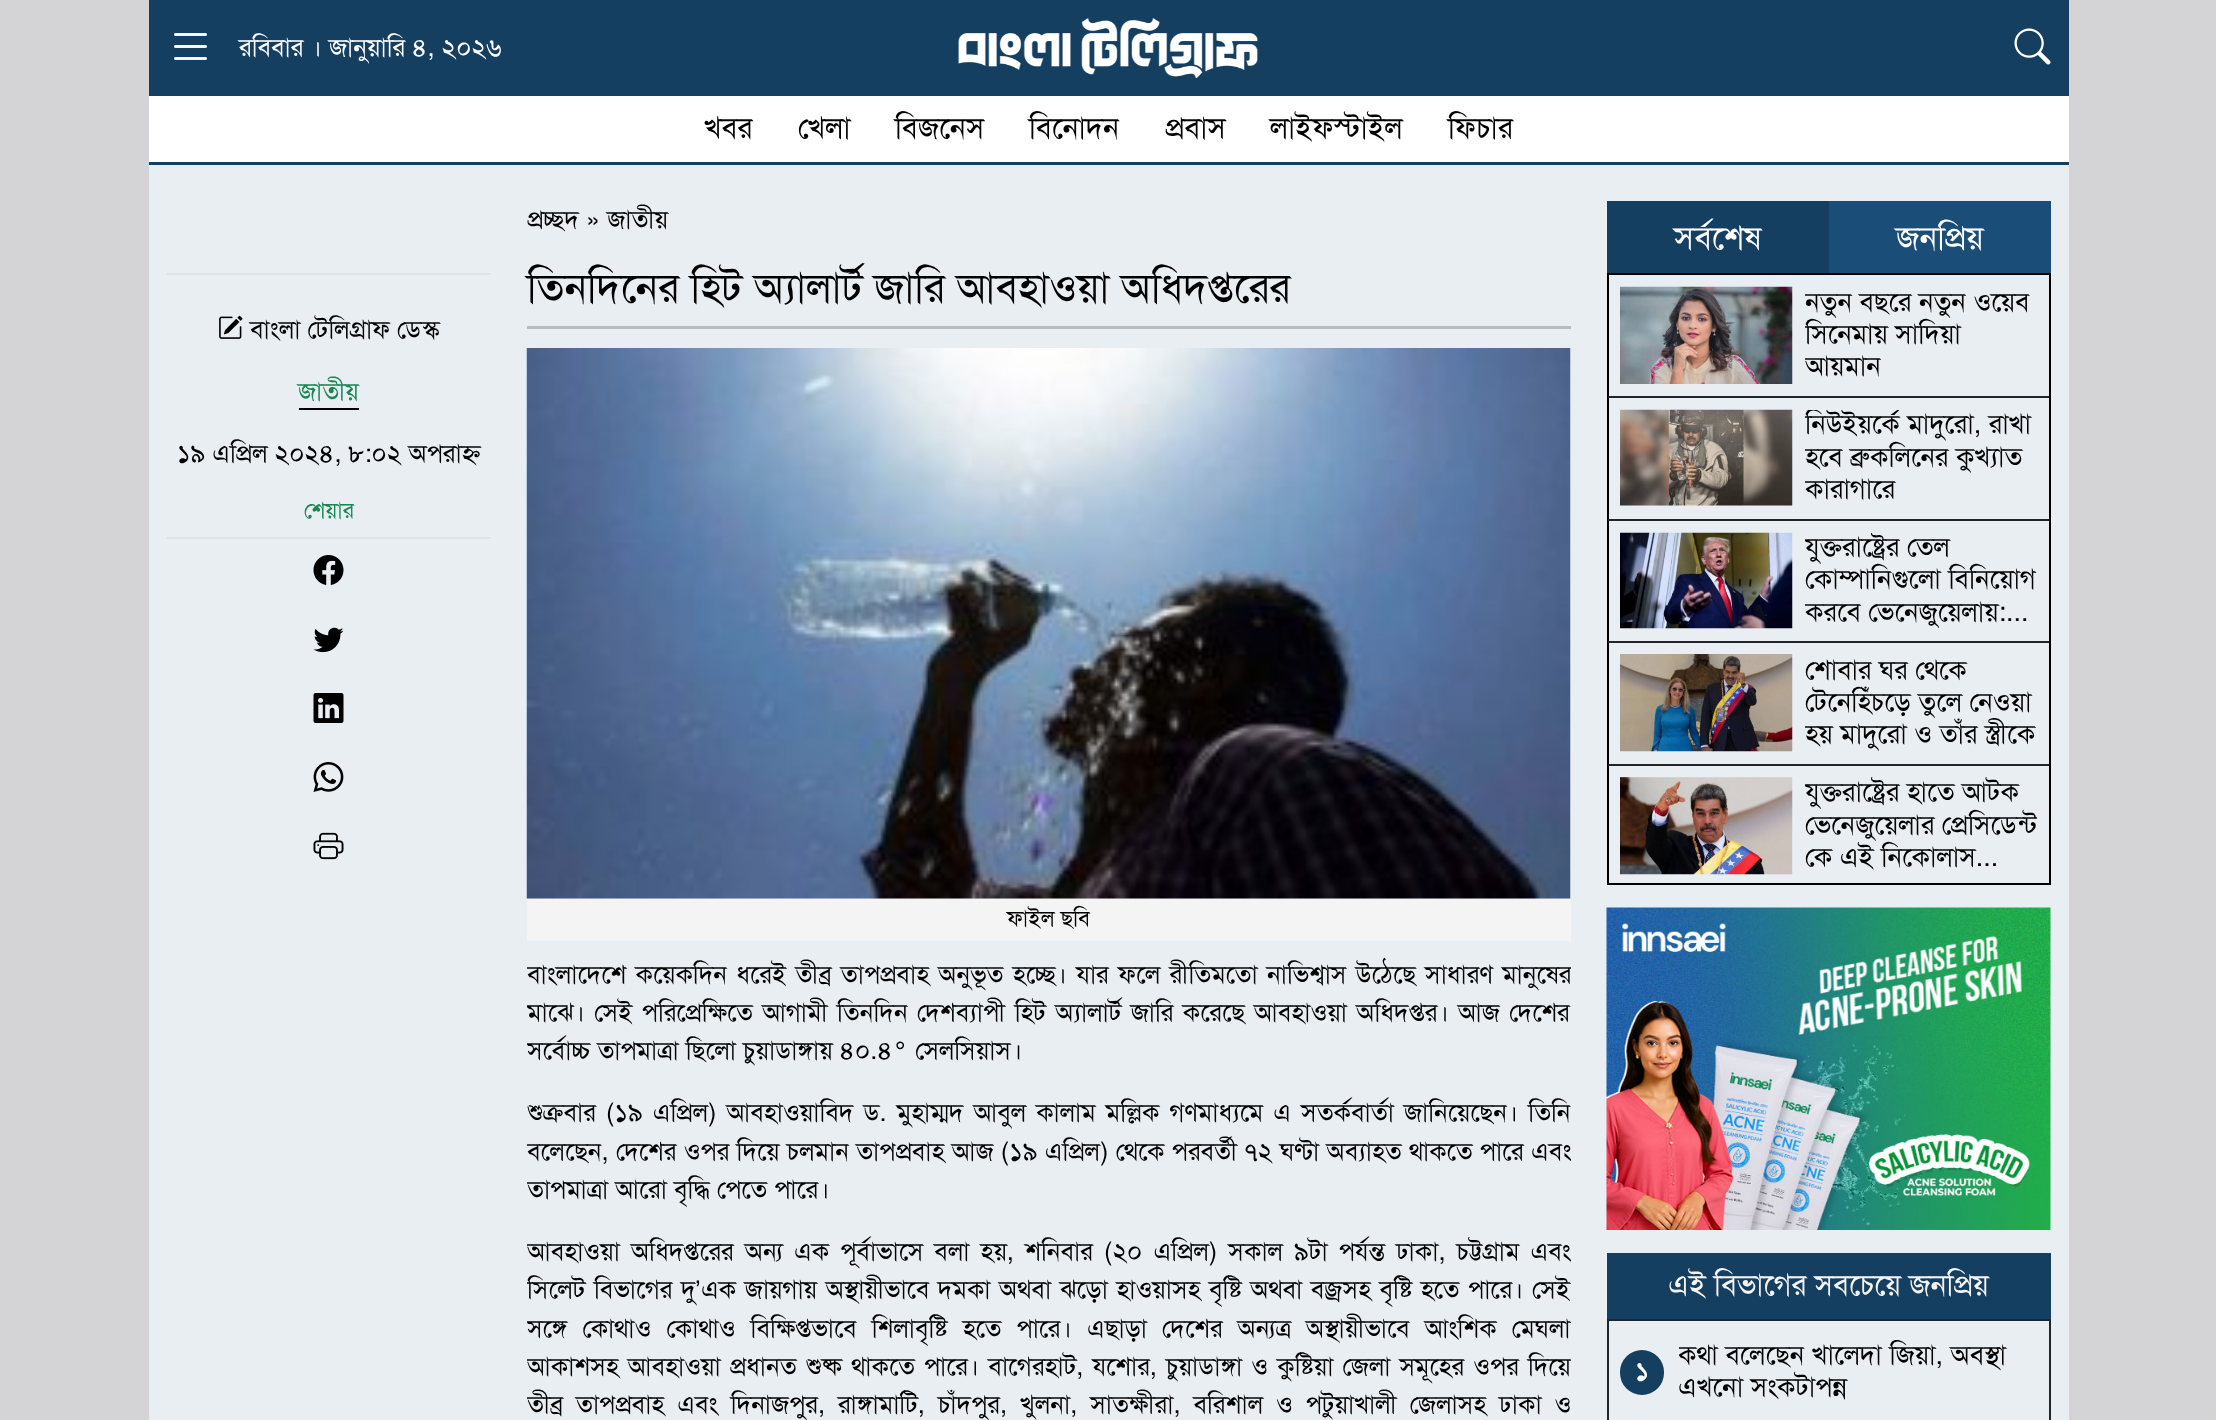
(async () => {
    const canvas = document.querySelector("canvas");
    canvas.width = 2216;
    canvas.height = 1420;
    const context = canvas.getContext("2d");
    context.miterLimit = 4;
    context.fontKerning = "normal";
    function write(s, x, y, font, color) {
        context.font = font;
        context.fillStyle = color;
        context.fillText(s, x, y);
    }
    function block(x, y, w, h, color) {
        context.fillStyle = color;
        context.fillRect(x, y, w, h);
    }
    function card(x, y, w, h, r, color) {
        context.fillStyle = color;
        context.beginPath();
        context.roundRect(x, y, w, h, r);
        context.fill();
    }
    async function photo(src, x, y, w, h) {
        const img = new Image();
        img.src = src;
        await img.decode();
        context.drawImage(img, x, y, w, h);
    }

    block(0, 0, 2216, 1420, "rgb(212, 212, 215)");
    block(149, 0, 1920, 96, "rgb(21, 63, 97)");
    await photo("media/1.png", 174, 33, 33, 27);
    write("রবিবার । জানুয়ারি ৪, ২০২৬", 239, 56, "25.5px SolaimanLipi", "rgb(255, 255, 255)");
    await photo("media/2.png", 958, 18, 300, 60);
    await photo("media/3.png", 2014, 28, 37, 37);
    block(149, 96, 1920, 66, "rgb(255, 255, 255)");
    block(149, 162, 1920, 3, "rgb(21, 63, 97)");
    write("খবর", 704, 138, "30px SolaimanLipi", "rgb(0, 0, 0)");
    write("খেলা", 798, 138, "30px SolaimanLipi", "rgb(0, 0, 0)");
    write("বিজনেস", 895, 138, "30px SolaimanLipi", "rgb(0, 0, 0)");
    write("বিনোদন", 1029, 138, "30px SolaimanLipi", "rgb(0, 0, 0)");
    write("প্রবাস", 1165, 138, "30px SolaimanLipi", "rgb(0, 0, 0)");
    write("লাইফস্টাইল", 1270, 138, "30px SolaimanLipi", "rgb(0, 0, 0)");
    write("ফিচার", 1448, 138, "30px SolaimanLipi", "rgb(0, 0, 0)");
    block(149, 165, 1920, 1255, "rgb(233, 238, 243)");
    block(167, 273, 324, 2, "rgb(222, 226, 230)");
    await photo("media/4.png", 219, 315, 24, 24);
    write("বাংলা টেলিগ্রাফ ডেস্ক", 250, 338, "25.5px SolaimanLipi", "rgb(0, 0, 0)");
    write("জাতীয়", 298, 400, "25.5px SolaimanLipi", "rgb(25, 135, 84)");
    block(299, 408, 60, 2, "rgb(0, 0, 0)");
    write("১৯ এপ্রিল ২০২৪, ৮:০২ অপরাহ্ন", 177, 462, "25.5px SolaimanLipi", "rgb(0, 0, 0)");
    block(167, 537, 324, 2, "rgb(222, 226, 230)");
    write("শেয়ার", 304, 518, "22.5px SolaimanLipi", "rgb(25, 135, 84)");
    await photo("media/5.png", 313, 555, 31, 30);
    await photo("media/6.png", 313, 627, 31, 26);
    await photo("media/7.png", 313, 693, 31, 30);
    await photo("media/8.png", 313, 762, 31, 30);
    await photo("media/9.png", 313, 832, 31, 28);
    write("প্রচ্ছদ » জাতীয়", 527, 228, "25.5px SolaimanLipi", "rgb(0, 0, 0)");
    write("তিনদিনের হিট অ্যালার্ট জারি আবহাওয়া অধিদপ্তরের", 527, 302, "42px SolaimanLipi", "rgb(0, 0, 0)");
    block(527, 326, 1044, 3, "rgb(183, 188, 193)");
    await photo("media/10.png", 526, 348, 1045, 551);
    block(527, 899, 1044, 42, "rgb(244, 244, 244)");
    write("ফাইল ছবি", 1007, 926, "22.5px SolaimanLipi", "rgb(0, 0, 0)");
    context.save();
    context.beginPath();
    context.rect(527, 341, 1044, 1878);
    context.clip();
    context.wordSpacing = "2.25px";
    write("বাংলাদেশে কয়েকদিন ধরেই তীব্র তাপপ্রবাহ অনুভূত হচ্ছে। যার ফলে রীতিমতো নাভিশ্বাস উঠেছে সাধারণ মানুষের", 527, 983, "25.5px SolaimanLipi", "rgb(0, 0, 0)");
    write("মাঝে। সেই পরিপ্রেক্ষিতে আগামী তিনদিন দেশব্যাপী হিট অ্যালার্ট জারি করেছে আবহাওয়া অধিদপ্তর। আজ দেশের", 527, 1021, "25.5px SolaimanLipi", "rgb(0, 0, 0)");
    context.wordSpacing = "0px";
    write("সর্বোচ্চ তাপমাত্রা ছিলো চুয়াডাঙ্গায় ৪০.৪° সেলসিয়াস।", 527, 1059, "25.5px SolaimanLipi", "rgb(0, 0, 0)");
    context.restore();
    context.wordSpacing = "3px";
    write("শুক্রবার (১৯ এপ্রিল) আবহাওয়াবিদ ড. মুহাম্মদ আবুল কালাম মল্লিক গণমাধ্যমে এ সতর্কবার্তা জানিয়েছেন। তিনি", 527, 1121, "25.5px SolaimanLipi", "rgb(0, 0, 0)");
    context.save();
    context.beginPath();
    context.rect(527, 341, 1044, 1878);
    context.clip();
    context.wordSpacing = "0.2px";
    write("বলেছেন, দেশের ওপর দিয়ে চলমান তাপপ্রবাহ আজ (১৯ এপ্রিল) থেকে পরবর্তী ৭২ ঘণ্টা অব্যাহত থাকতে পারে এবং", 527, 1160, "25.5px SolaimanLipi", "rgb(0, 0, 0)");
    context.wordSpacing = "0px";
    write("তাপমাত্রা আরো বৃদ্ধি পেতে পারে।", 527, 1198, "25.5px SolaimanLipi", "rgb(0, 0, 0)");
    context.wordSpacing = "4px";
    write("আবহাওয়া অধিদপ্তরের অন্য এক পূর্বাভাসে বলা হয়, শনিবার (২০ এপ্রিল) সকাল ৯টা পর্যন্ত ঢাকা, চট্টগ্রাম এবং", 527, 1260, "25.5px SolaimanLipi", "rgb(0, 0, 0)");
    context.wordSpacing = "1.5px";
    write("সিলেট বিভাগের দু", 527, 1298, "25.5px SolaimanLipi", "rgb(0, 0, 0)");
    context.restore();
    context.wordSpacing = "0px";
    write("’", 695, 1298, "25.5px Liberation Sans", "rgb(0, 0, 0)");
    context.wordSpacing = "1.5px";
    write("এক জায়গায় অস্থায়ীভাবে দমকা অথবা ঝড়ো হাওয়াসহ বৃষ্টি অথবা বজ্রসহ বৃষ্টি হতে পারে। সেই", 701, 1298, "25.5px SolaimanLipi", "rgb(0, 0, 0)");
    context.save();
    context.beginPath();
    context.rect(527, 341, 1044, 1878);
    context.clip();
    context.wordSpacing = "8px";
    write("সঙ্গে কোথাও কোথাও বিক্ষিপ্তভাবে শিলাবৃষ্টি হতে পারে। এছাড়া দেশের অন্যত্র অস্থায়ীভাবে আংশিক মেঘলা", 527, 1337, "25.5px SolaimanLipi", "rgb(0, 0, 0)");
    context.wordSpacing = "2px";
    write("আকাশসহ আবহাওয়া প্রধানত শুষ্ক থাকতে পারে। বাগেরহাট, যশোর, চুয়াডাঙ্গা ও কুষ্টিয়া জেলা সমূহের ওপর দিয়ে", 527, 1375, "25.5px SolaimanLipi", "rgb(0, 0, 0)");
    context.wordSpacing = "5.9px";
    write("তীব্র তাপপ্রবাহ এবং দিনাজপুর, রাঙ্গামাটি, চাঁদপুর, খুলনা, সাতক্ষীরা, বরিশাল ও পটুয়াখালী জেলাসহ ঢাকা ও", 527, 1413, "25.5px SolaimanLipi", "rgb(0, 0, 0)");
    context.restore();
    block(1607, 201, 222, 72, "rgb(21, 63, 97)");
    context.wordSpacing = "0px";
    write("সর্বশেষ", 1674, 249, "33px SolaimanLipi", "rgb(255, 255, 255)");
    block(1829, 201, 222, 72, "rgb(26, 78, 120)");
    write("জনপ্রিয়", 1896, 249, "33px SolaimanLipi", "rgb(255, 255, 255)");
    context.strokeStyle = "rgb(0, 0, 0)";
    context.lineWidth = 2;
    context.strokeRect(1608, 274, 442, 610);
    block(1608, 396, 441, 2, "rgb(33, 37, 41)");
    await photo("media/11.png", 1620, 286, 173, 98);
    context.save();
    context.beginPath();
    context.rect(1805, 287, 232, 97);
    context.clip();
    write("নতুন বছরে নতুন ওয়েব", 1805, 311, "27px SolaimanLipi", "rgb(0, 0, 0)");
    write("সিনেমায় সাদিয়া", 1805, 343, "27px SolaimanLipi", "rgb(0, 0, 0)");
    write("আয়মান", 1805, 375, "27px SolaimanLipi", "rgb(0, 0, 0)");
    context.restore();
    block(1608, 519, 441, 2, "rgb(33, 37, 41)");
    await photo("media/12.png", 1620, 409, 173, 97);
    context.save();
    context.beginPath();
    context.rect(1805, 410, 232, 97);
    context.clip();
    write("নিউইয়র্কে মাদুরো, রাখা", 1805, 433, "27px SolaimanLipi", "rgb(0, 0, 0)");
    write("হবে ব্রুকলিনের কুখ্যাত", 1805, 466, "27px SolaimanLipi", "rgb(0, 0, 0)");
    write("কারাগারে", 1805, 498, "27px SolaimanLipi", "rgb(0, 0, 0)");
    context.restore();
    block(1608, 641, 441, 2, "rgb(33, 37, 41)");
    await photo("media/13.png", 1620, 532, 173, 97);
    context.save();
    context.beginPath();
    context.rect(1805, 533, 232, 96);
    context.clip();
    write("যুক্তরাষ্ট্রের তেল", 1805, 556, "27px SolaimanLipi", "rgb(0, 0, 0)");
    write("কোম্পানিগুলো বিনিয়োগ", 1805, 588, "27px SolaimanLipi", "rgb(0, 0, 0)");
    write("করবে ভেনেজুয়েলায়:...", 1805, 621, "27px SolaimanLipi", "rgb(0, 0, 0)");
    context.restore();
    block(1608, 764, 441, 2, "rgb(33, 37, 41)");
    await photo("media/14.png", 1620, 654, 173, 98);
    context.save();
    context.beginPath();
    context.rect(1805, 654, 232, 98);
    context.clip();
    write("শোবার ঘর থেকে", 1805, 679, "27px SolaimanLipi", "rgb(0, 0, 0)");
    write("টেনেহিঁচড়ে তুলে নেওয়া", 1805, 711, "27px SolaimanLipi", "rgb(0, 0, 0)");
    write("হয় মাদুরো ও তাঁর স্ত্রীকে", 1805, 743, "27px SolaimanLipi", "rgb(0, 0, 0)");
    context.restore();
    await photo("media/15.png", 1620, 777, 173, 98);
    context.save();
    context.beginPath();
    context.rect(1805, 777, 232, 98);
    context.clip();
    write("যুক্তরাষ্ট্রের হাতে আটক", 1805, 801, "27px SolaimanLipi", "rgb(0, 0, 0)");
    write("ভেনেজুয়েলার প্রেসিডেন্ট", 1805, 834, "27px SolaimanLipi", "rgb(0, 0, 0)");
    write("কে এই নিকোলাস...", 1805, 866, "27px SolaimanLipi", "rgb(0, 0, 0)");
    context.restore();
    await photo("media/16.png", 1606, 907, 445, 323);
    block(1607, 1253, 444, 66, "rgb(21, 63, 97)");
    write("এই বিভাগের সবচেয়ে জনপ্রিয়", 1668, 1295, "30px SolaimanLipi", "rgb(244, 244, 244)");
    context.strokeStyle = "rgb(33, 37, 41)";
    context.strokeRect(1608, 1320, 442, 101);
    card(1620, 1350, 44, 45, 22, "rgb(21, 63, 97)");
    write("১", 1635, 1380, "bold 25.5px SolaimanLipi", "rgb(255, 255, 255)");
    context.save();
    context.beginPath();
    context.rect(1679, 1340, 358, 64);
    context.clip();
    write("কথা বলেছেন খালেদা জিয়া, অবস্থা", 1678, 1364, "27px SolaimanLipi", "rgb(0, 0, 0)");
    context.restore();
    write("এখনো সংকটাপন্ন", 1678, 1396, "27px SolaimanLipi", "rgb(0, 0, 0)");
})();
